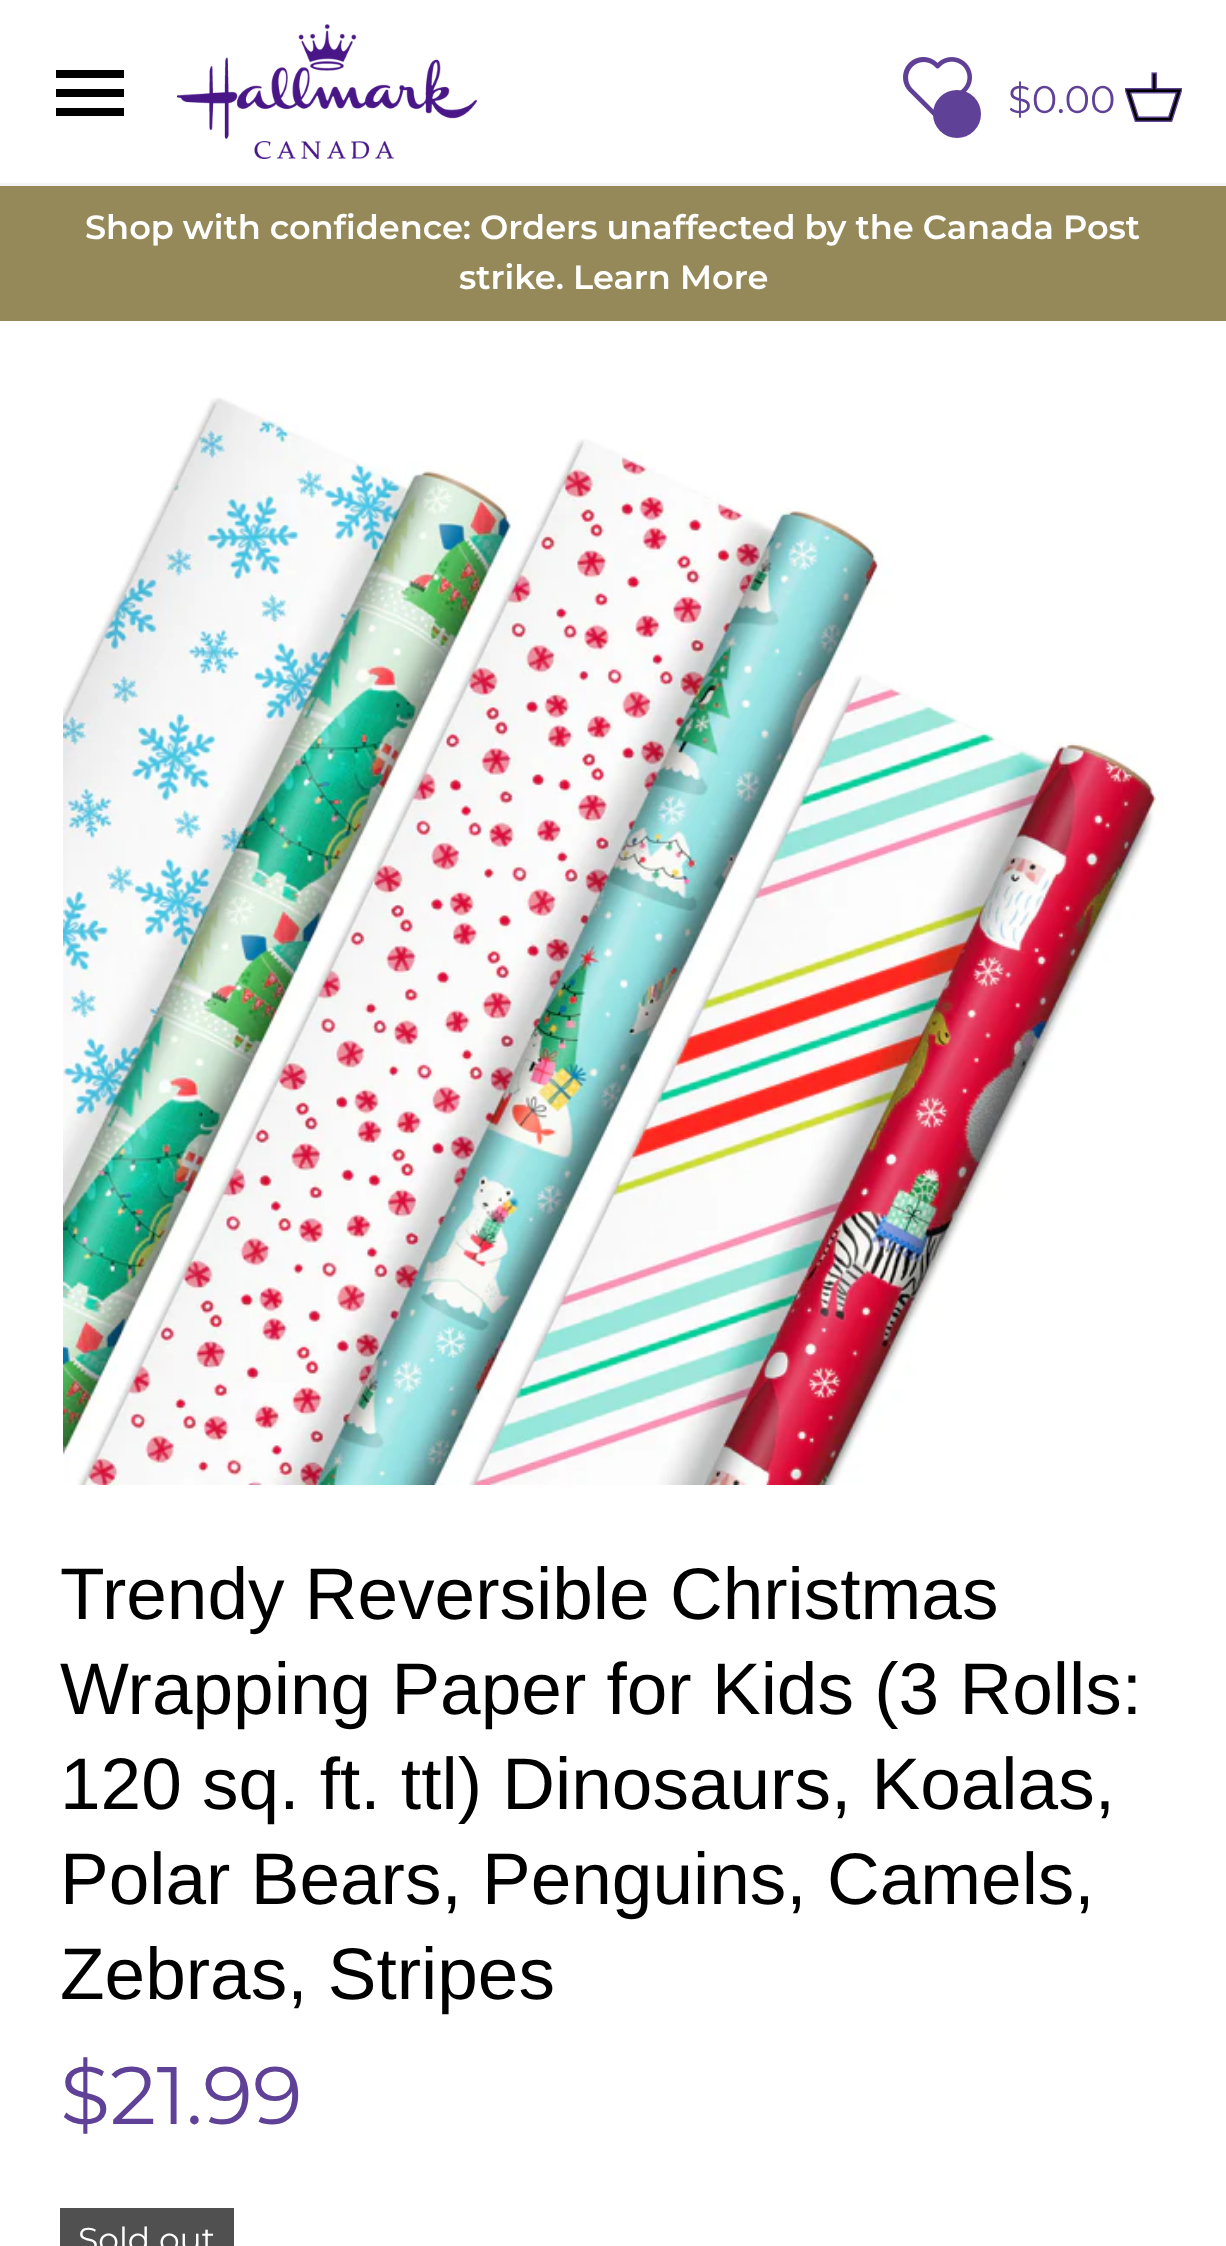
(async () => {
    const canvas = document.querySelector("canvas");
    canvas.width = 1226;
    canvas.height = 2246;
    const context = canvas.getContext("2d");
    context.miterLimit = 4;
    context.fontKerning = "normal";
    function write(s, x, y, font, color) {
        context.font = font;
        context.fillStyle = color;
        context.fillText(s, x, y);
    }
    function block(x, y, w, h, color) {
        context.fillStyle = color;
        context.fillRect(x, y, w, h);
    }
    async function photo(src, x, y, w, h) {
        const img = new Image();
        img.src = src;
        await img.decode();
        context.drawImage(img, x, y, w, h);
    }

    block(0, 0, 1226, 2246, "rgb(255, 255, 255)");
    block(0, 183, 1226, 3, "rgb(244, 244, 244)");
    context.fillStyle = "rgb(0, 0, 0)";
    context.beginPath();
    context.moveTo(56, 116);
    context.lineTo(124, 116);
    context.lineTo(124, 108);
    context.lineTo(56, 108);
    context.closePath();
    context.moveTo(56, 97);
    context.lineTo(124, 97);
    context.lineTo(124, 89);
    context.lineTo(56, 89);
    context.closePath();
    context.moveTo(56, 70);
    context.lineTo(56, 78);
    context.lineTo(124, 78);
    context.lineTo(124, 70);
    context.closePath();
    context.fill();
    await photo("media/1.png", 177, 24, 300, 135);
    await photo("media/2.png", 903, 57, 69, 60);
    context.fillStyle = "rgb(95, 65, 151)";
    context.beginPath();
    context.arc(957, 114, 24, 0, Math.PI * 2);
    context.fill();
    write("$0.00", 1008, 113, "38.5px Montserrat", "rgb(95, 65, 151)");
    await photo("media/3.png", 1125, 72, 57, 50);
    block(0, 186, 1226, 135, "rgb(150, 137, 89)");
    context.wordSpacing = "-0.25px";
    write("Shop with confidence: Orders unaffected by the Canada Post", 85, 239, "600 33.6px Montserrat", "rgb(255, 255, 255)");
    context.wordSpacing = "0px";
    write("strike. Learn More", 459, 289, "600 33.6px Montserrat", "rgb(255, 255, 255)");
    await photo("media/4.png", 63, 397, 1101, 1088);
    write("Trendy Reversible Christmas", 60, 1619, "73px Liberation Sans", "rgb(0, 0, 0)");
    write("Wrapping Paper for Kids (3 Rolls:", 60, 1714, "73px Liberation Sans", "rgb(0, 0, 0)");
    write("120 sq. ft. ttl) Dinosaurs, Koalas,", 60, 1809, "73px Liberation Sans", "rgb(0, 0, 0)");
    write("Polar Bears, Penguins, Camels,", 60, 1904, "73px Liberation Sans", "rgb(0, 0, 0)");
    write("Zebras, Stripes", 60, 1999, "73px Liberation Sans", "rgb(0, 0, 0)");
    write("$21.99", 60, 2124, "81.5px Montserrat", "rgb(95, 65, 151)");
    block(60, 2208, 174, 38, "rgb(80, 80, 80)");
    write("Sold out", 78, 2251, "33px Montserrat", "rgb(255, 255, 255)");
})();
